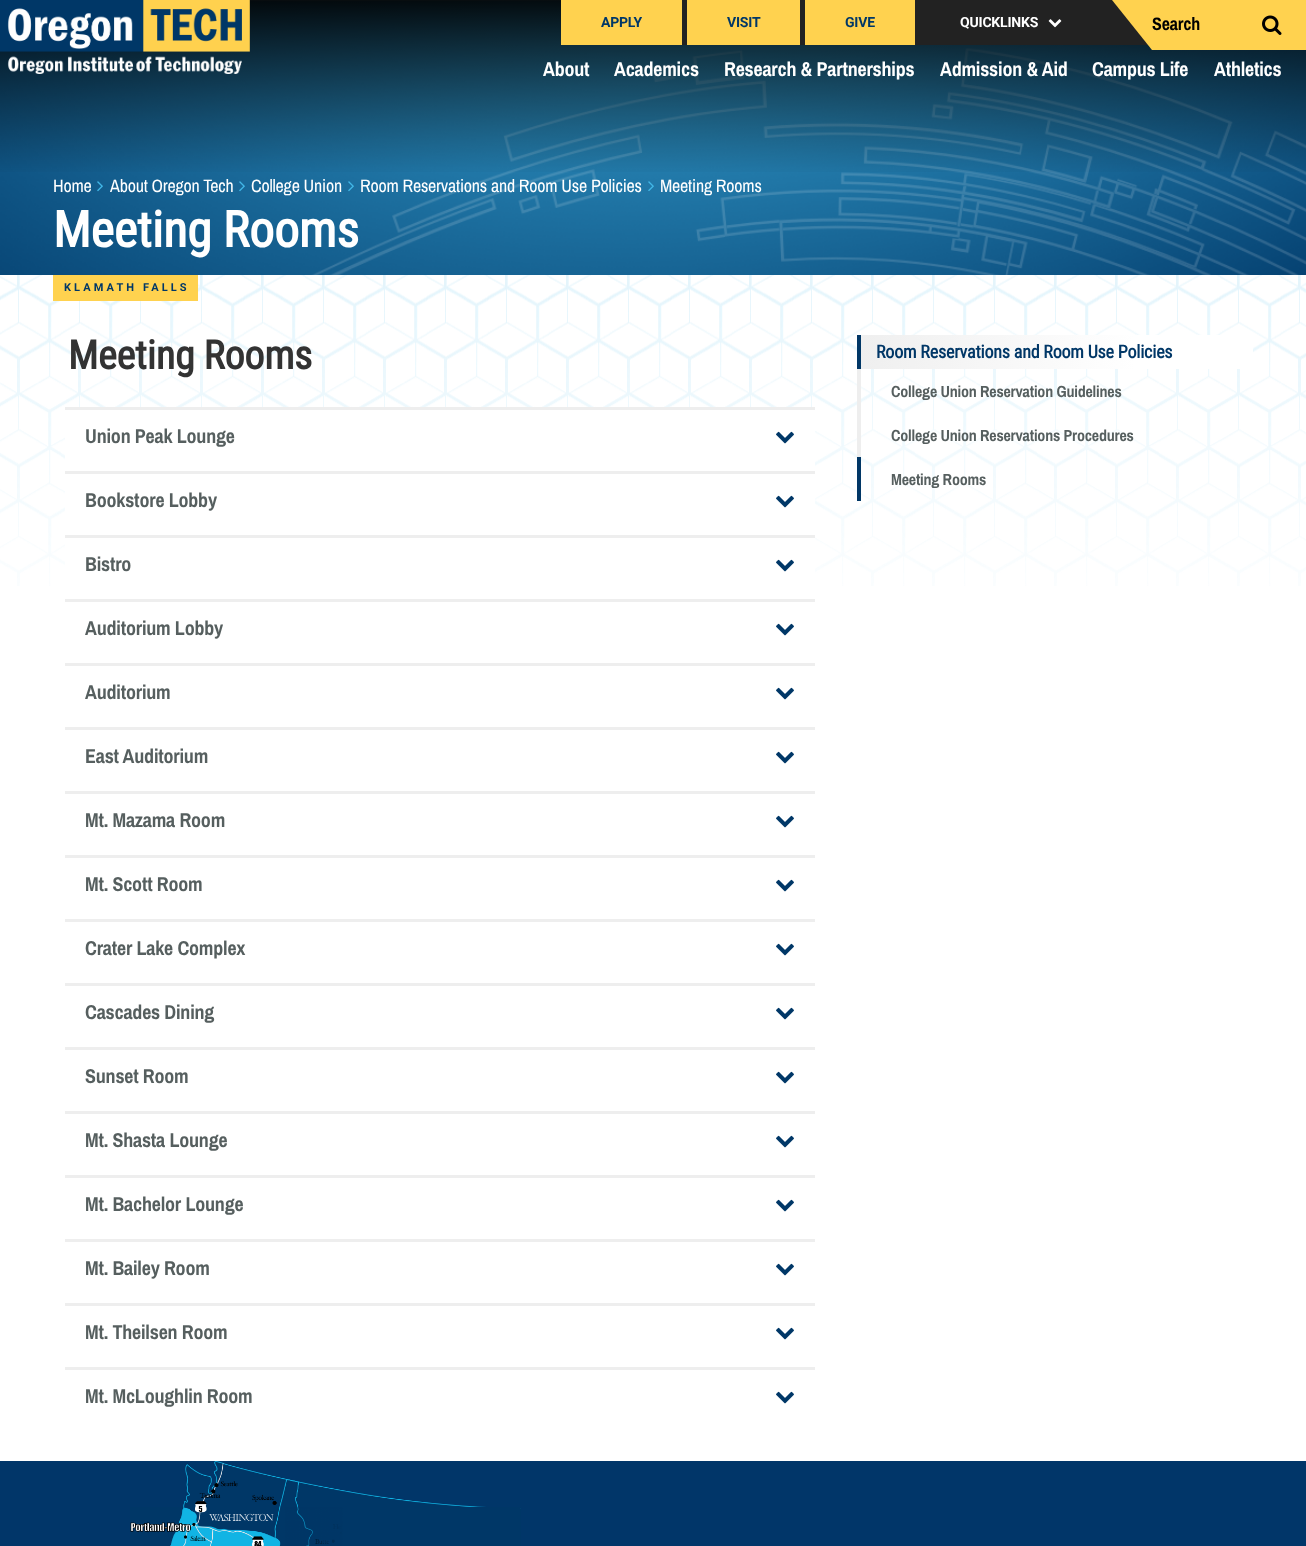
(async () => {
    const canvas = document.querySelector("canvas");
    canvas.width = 1306;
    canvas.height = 1546;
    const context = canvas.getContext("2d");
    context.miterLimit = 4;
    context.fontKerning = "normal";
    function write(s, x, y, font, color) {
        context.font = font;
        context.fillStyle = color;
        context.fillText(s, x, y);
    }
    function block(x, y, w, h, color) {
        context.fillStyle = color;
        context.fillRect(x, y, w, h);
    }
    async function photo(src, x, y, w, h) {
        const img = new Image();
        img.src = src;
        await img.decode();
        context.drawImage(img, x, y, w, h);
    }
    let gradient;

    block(0, 0, 1306, 1546, "rgb(255, 255, 255)");
    await photo("media/5.png", 0, 0, 1306, 275);
    gradient = context.createLinearGradient(653, 176, 653, 0);
    gradient.addColorStop(0, "rgba(0, 0, 0, 0)");
    gradient.addColorStop(1, "rgba(0, 0, 0, 0.93)");
    context.fillStyle = gradient;
    context.fillRect(0, 0, 1306, 172);
    await photo("media/1.png", 0, 0, 250, 74);
    block(682, 0, 466, 45, "rgb(34, 34, 34)");
    block(561, 0, 121, 45, "rgb(255, 210, 79)");
    context.letterSpacing = "-0.2px";
    write("APPLY", 601, 27, "bold 14px Roboto", "rgb(0, 55, 103)");
    block(687, 0, 113, 45, "rgb(255, 210, 79)");
    write("VISIT", 727, 27, "bold 14px Roboto", "rgb(0, 55, 103)");
    block(805, 0, 110, 45, "rgb(255, 210, 79)");
    write("GIVE", 845, 27, "bold 14px Roboto", "rgb(0, 55, 103)");
    write("QUICKLINKS", 960, 27, "bold 14px Roboto", "rgb(255, 255, 255)");
    await photo("media/2.png", 1048, 19, 14, 9);
    block(1152, 0, 154, 50, "rgb(255, 210, 79)");
    context.beginPath();
    context.moveTo(1112, 0);
    context.lineTo(1152, 0);
    context.lineTo(1152, 50);
    context.closePath();
    context.fill();
    write("Search", 1152, 30, "bold 18px Archivo Narrow", "rgb(0, 0, 0)");
    await photo("media/3.png", 1262, 15, 20, 20);
    write("About", 543, 76, "bold 20px Archivo Narrow", "rgb(255, 255, 255)");
    write("Academics", 614, 76, "bold 20px Archivo Narrow", "rgb(255, 255, 255)");
    write("Research & Partnerships", 724, 76, "bold 20px Archivo Narrow", "rgb(255, 255, 255)");
    write("Admission & Aid", 940, 76, "bold 20px Archivo Narrow", "rgb(255, 255, 255)");
    write("Campus Life", 1092, 76, "bold 20px Archivo Narrow", "rgb(255, 255, 255)");
    write("Athletics", 1214, 76, "bold 20px Archivo Narrow", "rgb(255, 255, 255)");
    await photo("media/4.png", 0, 275, 1306, 311);
    write("Home", 53, 192, "18px Archivo Narrow", "rgb(255, 255, 255)");
    await photo("media/6.png", 97, 181, 6, 11);
    write("About Oregon Tech", 110, 192, "18px Archivo Narrow", "rgb(255, 255, 255)");
    await photo("media/7.png", 239, 181, 6, 11);
    write("College Union", 251, 192, "18px Archivo Narrow", "rgb(255, 255, 255)");
    await photo("media/8.png", 348, 181, 6, 11);
    write("Room Reservations and Room Use Policies", 360, 192, "18px Archivo Narrow", "rgb(255, 255, 255)");
    await photo("media/9.png", 648, 181, 6, 10);
    write("Meeting Rooms", 660, 192, "18px Archivo Narrow", "rgb(255, 255, 255)");
    write("Meeting Rooms", 53, 247, "bold 50px Roboto Condensed", "rgb(255, 255, 255)");
    block(53, 275, 145, 26, "rgb(255, 210, 79)");
    context.letterSpacing = "3.1px";
    write("KLAMATH FALLS", 64, 291, "bold 11px Roboto", "rgb(0, 55, 103)");
    context.letterSpacing = "-0.2px";
    write("Meeting Rooms", 68, 369, "bold 40px Roboto Condensed", "rgb(51, 51, 51)");
    block(65, 410, 750, 61, "rgb(255, 255, 255)");
    block(65, 407, 750, 3, "rgb(238, 238, 238)");
    write("Union Peak Lounge", 85, 443, "bold 20px Archivo Narrow", "rgb(86, 95, 95)");
    await photo("media/10.png", 776, 431, 18, 13);
    block(65, 474, 750, 61, "rgb(255, 255, 255)");
    block(65, 471, 750, 3, "rgb(238, 238, 238)");
    write("Bookstore Lobby", 85, 507, "bold 20px Archivo Narrow", "rgb(86, 95, 95)");
    await photo("media/10.png", 776, 495, 18, 13);
    block(65, 538, 750, 48, "rgb(255, 255, 255)");
    block(65, 535, 750, 3, "rgb(238, 238, 238)");
    write("Bistro", 85, 571, "bold 20px Archivo Narrow", "rgb(86, 95, 95)");
    await photo("media/10.png", 776, 559, 18, 13);
    block(65, 599, 750, 3, "rgb(238, 238, 238)");
    write("Auditorium Lobby", 85, 635, "bold 20px Archivo Narrow", "rgb(86, 95, 95)");
    await photo("media/10.png", 776, 623, 18, 13);
    block(65, 663, 750, 3, "rgb(238, 238, 238)");
    write("Auditorium", 85, 699, "bold 20px Archivo Narrow", "rgb(86, 95, 95)");
    await photo("media/10.png", 776, 687, 18, 13);
    block(65, 727, 750, 3, "rgb(238, 238, 238)");
    write("East Auditorium", 85, 763, "bold 20px Archivo Narrow", "rgb(86, 95, 95)");
    await photo("media/10.png", 776, 751, 18, 13);
    block(65, 791, 750, 3, "rgb(238, 238, 238)");
    write("Mt. Mazama Room", 85, 827, "bold 20px Archivo Narrow", "rgb(86, 95, 95)");
    await photo("media/10.png", 776, 815, 18, 13);
    block(65, 855, 750, 3, "rgb(238, 238, 238)");
    write("Mt. Scott Room", 85, 891, "bold 20px Archivo Narrow", "rgb(86, 95, 95)");
    await photo("media/10.png", 776, 879, 18, 13);
    block(65, 919, 750, 3, "rgb(238, 238, 238)");
    write("Crater Lake Complex", 85, 955, "bold 20px Archivo Narrow", "rgb(86, 95, 95)");
    await photo("media/10.png", 776, 943, 18, 13);
    block(65, 983, 750, 3, "rgb(238, 238, 238)");
    write("Cascades Dining", 85, 1019, "bold 20px Archivo Narrow", "rgb(86, 95, 95)");
    await photo("media/10.png", 776, 1007, 18, 13);
    block(65, 1047, 750, 3, "rgb(238, 238, 238)");
    write("Sunset Room", 85, 1083, "bold 20px Archivo Narrow", "rgb(86, 95, 95)");
    await photo("media/10.png", 776, 1071, 18, 13);
    block(65, 1111, 750, 3, "rgb(238, 238, 238)");
    write("Mt. Shasta Lounge", 85, 1147, "bold 20px Archivo Narrow", "rgb(86, 95, 95)");
    await photo("media/10.png", 776, 1135, 18, 13);
    block(65, 1175, 750, 3, "rgb(238, 238, 238)");
    write("Mt. Bachelor Lounge", 85, 1211, "bold 20px Archivo Narrow", "rgb(86, 95, 95)");
    await photo("media/10.png", 776, 1199, 18, 13);
    block(65, 1239, 750, 3, "rgb(238, 238, 238)");
    write("Mt. Bailey Room", 85, 1275, "bold 20px Archivo Narrow", "rgb(86, 95, 95)");
    await photo("media/10.png", 776, 1263, 18, 13);
    block(65, 1303, 750, 3, "rgb(238, 238, 238)");
    write("Mt. Theilsen Room", 85, 1339, "bold 20px Archivo Narrow", "rgb(86, 95, 95)");
    await photo("media/10.png", 776, 1327, 18, 13);
    block(65, 1367, 750, 3, "rgb(238, 238, 238)");
    write("Mt. McLoughlin Room", 85, 1403, "bold 20px Archivo Narrow", "rgb(86, 95, 95)");
    await photo("media/10.png", 776, 1391, 18, 13);
    gradient = context.createLinearGradient(861, 352, 1253, 352);
    gradient.addColorStop(0, "rgb(239, 239, 239)");
    gradient.addColorStop(0.7, "rgb(255, 255, 255)");
    gradient.addColorStop(1, "rgb(255, 255, 255)");
    context.fillStyle = gradient;
    context.fillRect(861, 335, 392, 34);
    block(857, 335, 4, 34, "rgb(1, 55, 102)");
    write("Room Reservations and Room Use Policies", 876, 358, "bold 18px Roboto Condensed", "rgb(0, 55, 103)");
    block(857, 369, 4, 88, "rgb(238, 238, 238)");
    write("College Union Reservation Guidelines", 891, 397, "bold 16px Archivo Narrow", "rgb(86, 95, 95)");
    write("College Union Reservations Procedures", 891, 441, "bold 16px Archivo Narrow", "rgb(86, 95, 95)");
    block(857, 457, 4, 44, "rgb(1, 55, 102)");
    write("Meeting Rooms", 891, 485, "bold 16px Archivo Narrow", "rgb(86, 95, 95)");
    block(0, 1461, 1306, 85, "rgb(1, 54, 105)");
    await photo("media/11.png", 130, 1461, 391, 85);
})();
